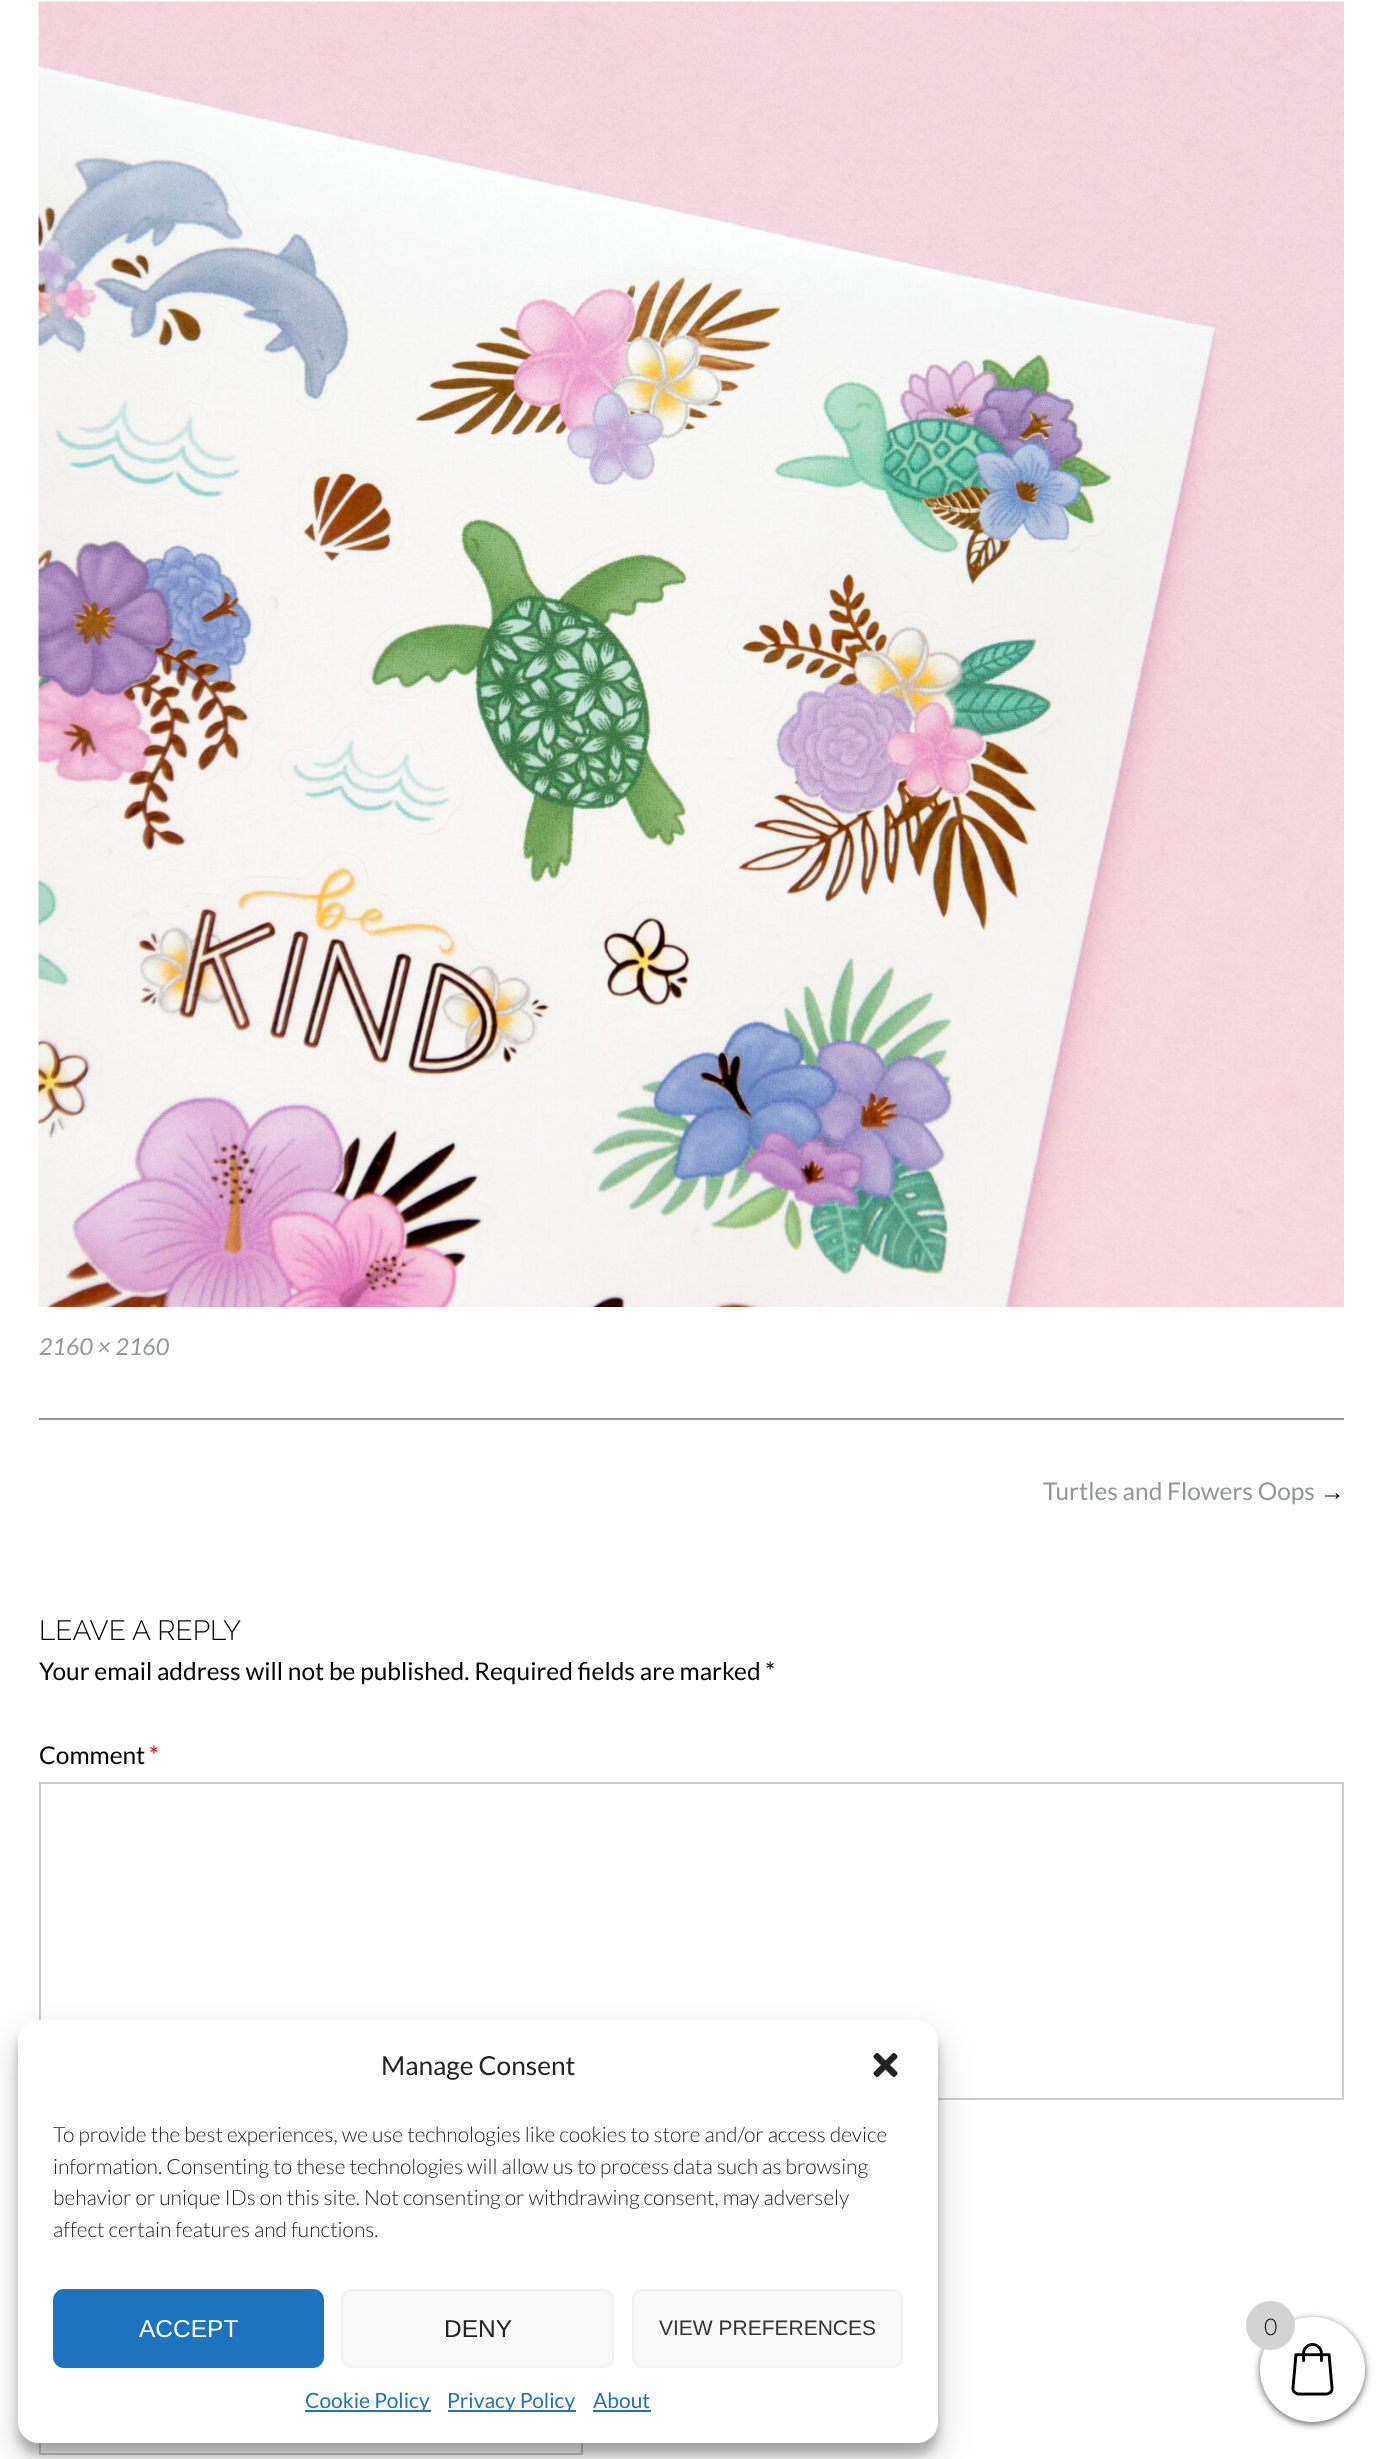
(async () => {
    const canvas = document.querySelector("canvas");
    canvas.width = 1381;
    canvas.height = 2459;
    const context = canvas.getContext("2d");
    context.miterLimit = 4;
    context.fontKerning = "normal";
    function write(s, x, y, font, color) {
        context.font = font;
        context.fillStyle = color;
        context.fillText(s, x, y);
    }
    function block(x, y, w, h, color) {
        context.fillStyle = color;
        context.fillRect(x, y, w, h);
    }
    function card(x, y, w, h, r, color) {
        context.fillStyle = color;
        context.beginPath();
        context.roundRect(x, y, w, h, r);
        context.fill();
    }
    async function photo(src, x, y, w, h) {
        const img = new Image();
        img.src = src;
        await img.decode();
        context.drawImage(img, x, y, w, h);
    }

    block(0, 0, 1381, 2459, "rgb(255, 255, 255)");
    block(39, 1418, 1305, 2, "rgb(147, 149, 152)");
    await photo("media/1.png", 38, 1, 1306, 1306);
    write("2160 × 2160", 39, 1355, "italic 23.25px Lato", "rgb(147, 149, 152)");
    write("Turtles and Flowers Oops", 1043, 1500, "24.5px Lato", "rgb(147, 149, 152)");
    write("→", 1320, 1500, "24.5px Liberation Serif", "rgb(0, 0, 0)");
    write("LEAVE A REPLY", 39, 1640, "300 28px Raleway", "rgb(0, 0, 0)");
    write("Your email address will not be published. Required fields are marked *", 39, 1680, "24.5px Lato", "rgb(0, 0, 0)");
    write("Comment", 39, 1764, "24.5px Lato", "rgb(0, 0, 0)");
    write("*", 149, 1764, "24.5px Lato", "rgb(255, 0, 0)");
    context.strokeStyle = "rgb(204, 204, 204)";
    context.lineWidth = 2;
    context.strokeRect(40, 1783, 1303, 316);
    context.strokeRect(40, 2376, 542, 78);
    context.fillStyle = "rgba(0, 0, 0, 0.23)";
    context.filter = "blur(5px)";
    context.beginPath();
    context.roundRect(18, 2030, 920, 424, 21);
    context.fill();
    context.filter = "none";
    context.fillStyle = "rgba(0, 0, 0, 0.19)";
    context.filter = "blur(17.5px)";
    context.beginPath();
    context.roundRect(18, 2037, 920, 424, 21);
    context.fill();
    context.filter = "none";
    card(18, 2020, 920, 423, 21, "rgb(255, 255, 255)");
    write("Manage Consent", 381, 2075, "26.25px Lato", "rgb(34, 34, 34)");
    await photo("media/2.png", 873, 2053, 25, 24);
    write("To provide the best experiences, we use technologies like cookies to store and/or access device", 53, 2142, "300 21px Lato", "rgb(34, 34, 34)");
    write("information. Consenting to these technologies will allow us to process data such as browsing", 53, 2174, "300 21px Lato", "rgb(34, 34, 34)");
    write("behavior or unique IDs on this site. Not consenting or withdrawing consent, may adversely", 53, 2205, "300 21px Lato", "rgb(34, 34, 34)");
    write("affect certain features and functions.", 53, 2237, "300 21px Lato", "rgb(34, 34, 34)");
    context.fillStyle = "rgb(30, 115, 190)";
    context.beginPath();
    context.roundRect(54, 2290, 269, 77, 10);
    context.fill();
    context.strokeStyle = "rgb(30, 115, 190)";
    context.stroke();
    write("ACCEPT", 139, 2337, "24.5px Liberation Sans", "rgb(255, 255, 255)");
    context.fillStyle = "rgb(249, 249, 249)";
    context.beginPath();
    context.roundRect(342, 2290, 271, 77, 10);
    context.fill();
    context.strokeStyle = "rgb(242, 242, 242)";
    context.stroke();
    write("DENY", 444, 2337, "24.5px Liberation Sans", "rgb(34, 34, 34)");
    context.fillStyle = "rgb(249, 249, 249)";
    context.beginPath();
    context.roundRect(633, 2290, 269, 77, 10);
    context.fill();
    context.stroke();
    write("VIEW PREFERENCES", 659, 2335, "21px Liberation Sans", "rgb(51, 51, 51)");
    block(305, 2410, 126, 2, "rgb(30, 115, 190)");
    write("Cookie Policy", 305, 2408, "21px Lato", "rgb(30, 115, 190)");
    block(448, 2410, 128, 2, "rgb(30, 115, 190)");
    write("Privacy Policy", 447, 2408, "21px Lato", "rgb(30, 115, 190)");
    write("About", 593, 2408, "21px Lato", "rgb(30, 115, 190)");
    block(593, 2410, 58, 2, "rgb(30, 115, 190)");
    context.fillStyle = "rgb(96, 96, 96)";
    context.filter = "blur(3.5px)";
    context.beginPath();
    context.roundRect(1260, 2319, 105, 105, 52.5);
    context.fill();
    context.filter = "none";
    context.fillStyle = "rgb(255, 255, 255)";
    context.beginPath();
    context.arc(1312.5, 2369.5, 52.5, 0, Math.PI * 2);
    context.fill();
    await photo("media/3.png", 1291, 2343, 43, 53);
    context.fillStyle = "rgb(211, 211, 211)";
    context.beginPath();
    context.arc(1270.5, 2325.5, 24.5, 0, Math.PI * 2);
    context.fill();
    write("0", 1264, 2335, "300 23px Lato", "rgb(10, 10, 10)");
})();
